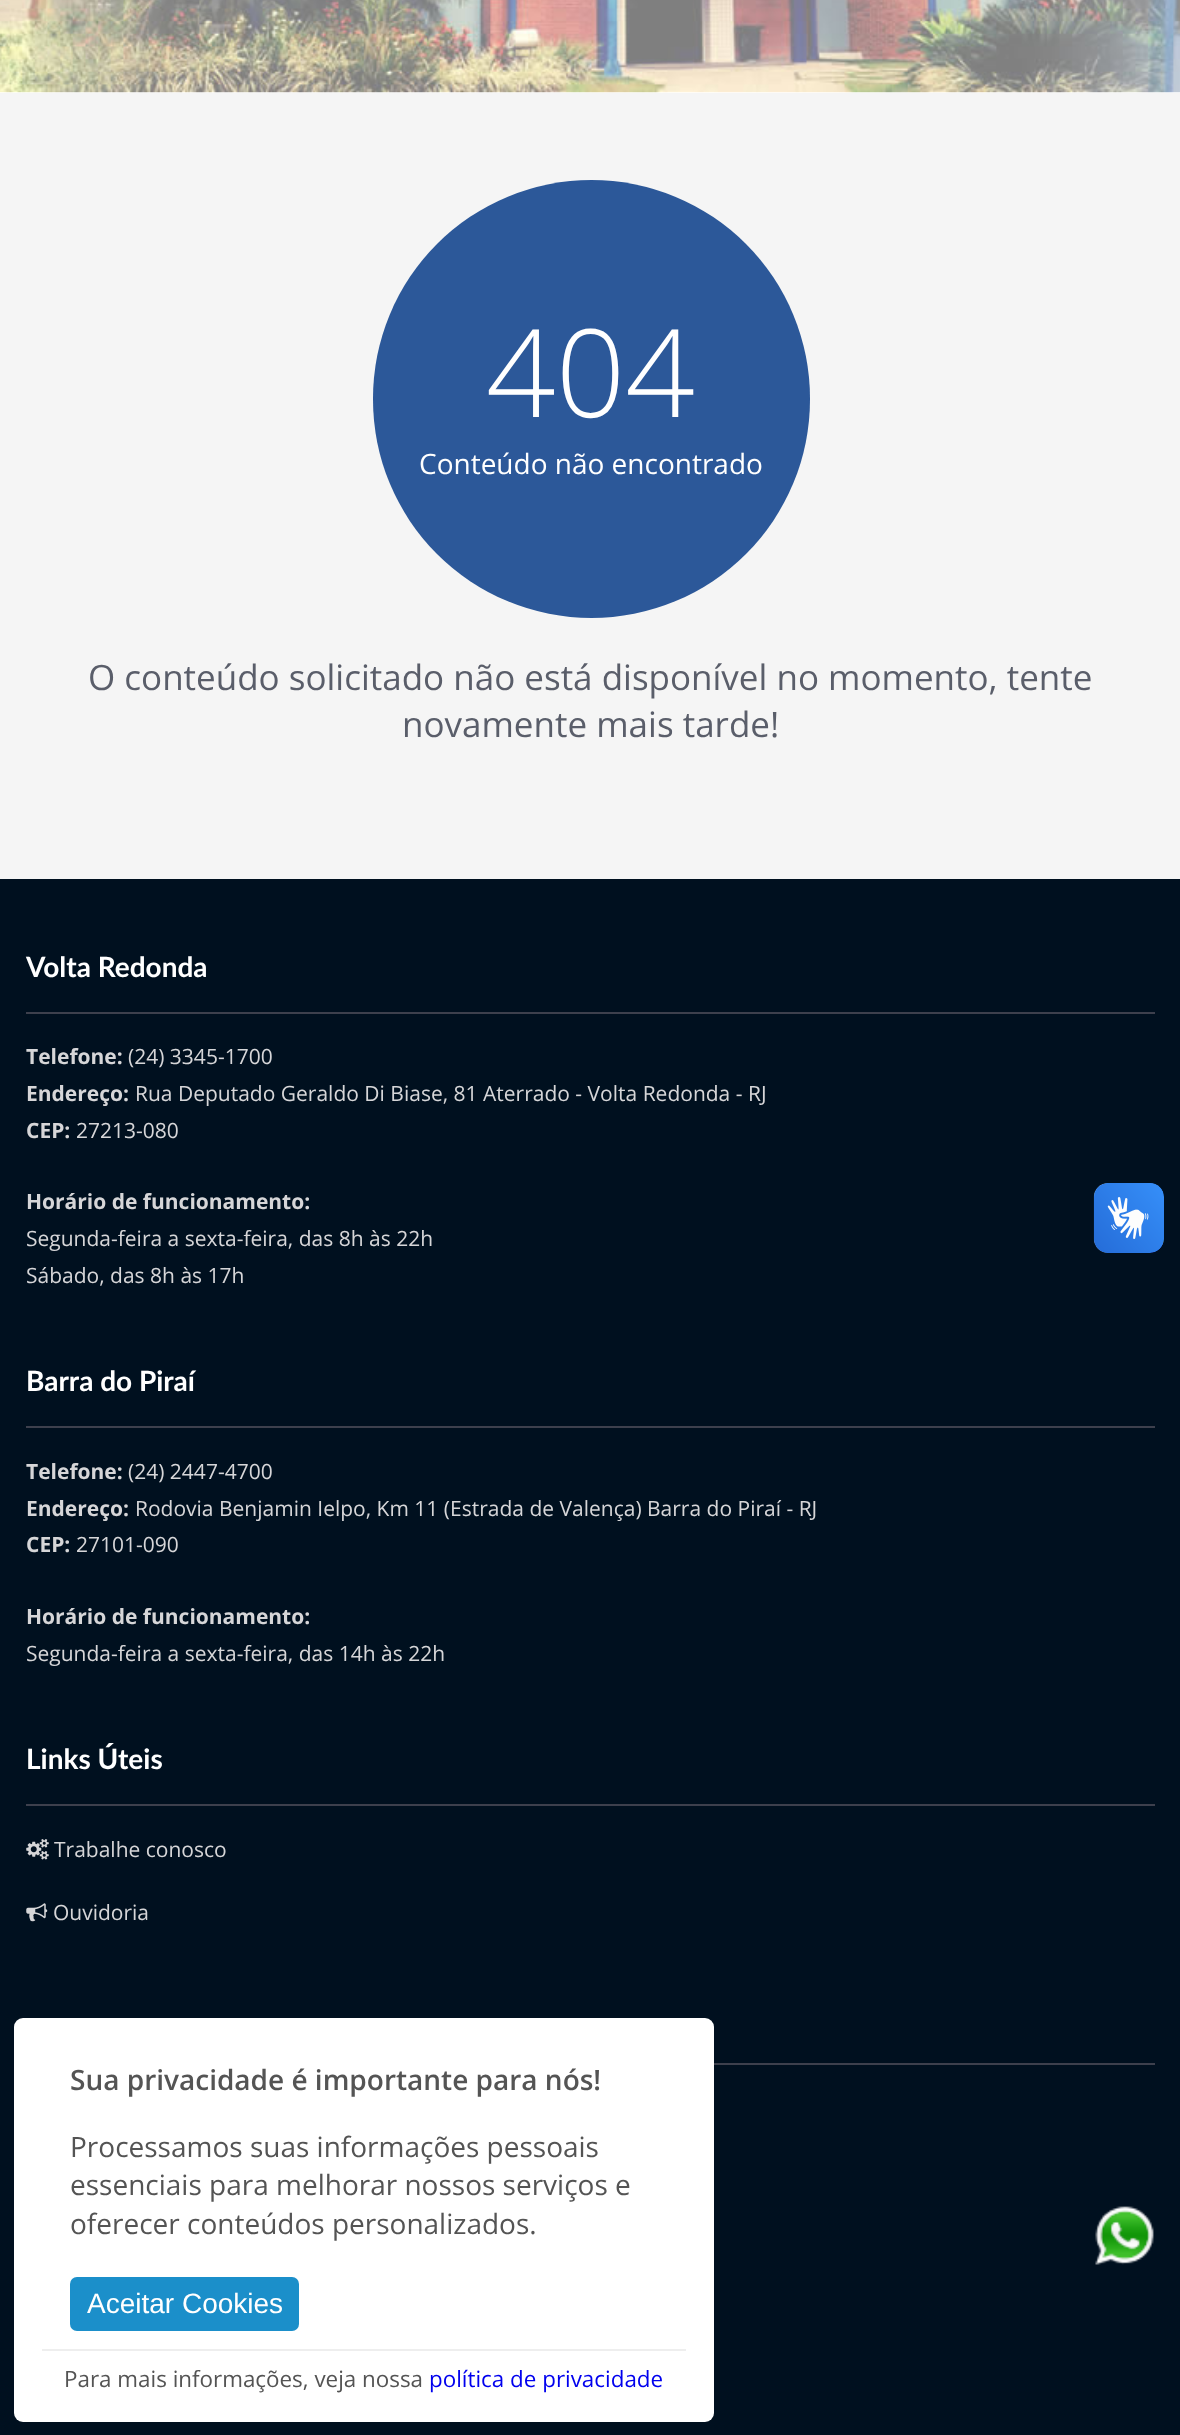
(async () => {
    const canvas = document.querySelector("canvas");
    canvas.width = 1180;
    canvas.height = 2435;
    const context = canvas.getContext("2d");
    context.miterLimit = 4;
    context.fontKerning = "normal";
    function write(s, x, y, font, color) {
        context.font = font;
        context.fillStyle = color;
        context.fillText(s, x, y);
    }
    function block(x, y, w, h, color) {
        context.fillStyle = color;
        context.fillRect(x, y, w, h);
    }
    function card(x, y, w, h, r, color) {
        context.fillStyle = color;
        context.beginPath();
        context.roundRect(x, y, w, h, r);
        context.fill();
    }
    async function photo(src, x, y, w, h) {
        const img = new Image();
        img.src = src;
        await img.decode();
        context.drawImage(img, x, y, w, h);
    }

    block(0, 0, 1180, 2435, "rgb(255, 255, 255)");
    await photo("media/1.png", 0, 0, 1180, 93);
    block(0, 93, 1180, 786, "rgb(245, 245, 245)");
    card(373, 180, 437, 438, 218.5, "rgb(44, 88, 153)");
    write("404", 486, 417, "300 122px Open Sans", "rgb(255, 255, 255)");
    write("Conteúdo não encontrado", 419, 474, "28px Open Sans", "rgb(255, 255, 255)");
    write("O conteúdo solicitado não está disponível no momento, tente", 88, 690, "35px Open Sans", "rgb(90, 94, 106)");
    write("novamente mais tarde!", 402, 737, "35px Open Sans", "rgb(90, 94, 106)");
    block(0, 879, 1180, 1556, "rgb(0, 16, 31)");
    block(26, 1012, 1129, 2, "rgb(61, 64, 77)");
    write("Volta Redonda", 26, 977, "bold 28px Lato", "rgb(255, 255, 255)");
    write("Telefone:", 26, 1064, "bold 21px Open Sans", "rgb(214, 214, 216)");
    write("(24) 3345-1700", 128, 1064, "21px Open Sans", "rgb(214, 214, 216)");
    write("Endereço:", 26, 1101, "bold 21px Open Sans", "rgb(214, 214, 216)");
    write("Rua Deputado Geraldo Di Biase, 81 Aterrado - Volta Redonda - RJ", 135, 1101, "21px Open Sans", "rgb(214, 214, 216)");
    write("CEP:", 26, 1138, "bold 21px Open Sans", "rgb(214, 214, 216)");
    write("27213-080", 76, 1138, "21px Open Sans", "rgb(214, 214, 216)");
    write("Horário de funcionamento:", 26, 1209, "bold 21px Open Sans", "rgb(214, 214, 216)");
    write("Segunda-feira a sexta-feira, das 8h às 22h", 26, 1246, "21px Open Sans", "rgb(214, 214, 216)");
    write("Sábado, das 8h às 17h", 26, 1283, "21px Open Sans", "rgb(214, 214, 216)");
    block(26, 1426, 1129, 2, "rgb(61, 64, 77)");
    write("Barra do Piraí", 26, 1391, "bold 28px Lato", "rgb(255, 255, 255)");
    write("Telefone:", 26, 1479, "bold 21px Open Sans", "rgb(214, 214, 216)");
    write("(24) 2447-4700", 128, 1479, "21px Open Sans", "rgb(214, 214, 216)");
    write("Endereço:", 26, 1516, "bold 21px Open Sans", "rgb(214, 214, 216)");
    write("Rodovia Benjamin Ielpo, Km 11 (Estrada de Valença) Barra do Piraí - RJ", 135, 1516, "21px Open Sans", "rgb(214, 214, 216)");
    write("CEP:", 26, 1552, "bold 21px Open Sans", "rgb(214, 214, 216)");
    write("27101-090", 76, 1552, "21px Open Sans", "rgb(214, 214, 216)");
    write("Horário de funcionamento:", 26, 1624, "bold 21px Open Sans", "rgb(214, 214, 216)");
    write("Segunda-feira a sexta-feira, das 14h às 22h", 26, 1661, "21px Open Sans", "rgb(214, 214, 216)");
    block(26, 1804, 1129, 2, "rgb(61, 64, 77)");
    write("Links Úteis", 26, 1769, "bold 28px Lato", "rgb(255, 255, 255)");
    await photo("media/2.png", 26, 1839, 23, 21);
    write("Trabalhe conosco", 54, 1857, "21px Open Sans", "rgb(214, 214, 216)");
    await photo("media/3.png", 26, 1903, 22, 19);
    write("Ouvidoria", 53, 1920, "21px Open Sans", "rgb(214, 214, 216)");
    block(714, 2063, 441, 2, "rgb(61, 64, 77)");
    await photo("media/4.png", 1093, 1183, 71, 70);
    await photo("media/5.png", 1094, 1183, 70, 70);
    card(14, 2018, 700, 404, 9, "rgb(255, 255, 255)");
    write("Sua privacidade é importante para nós!", 70, 2090, "600 28px Open Sans", "rgb(84, 84, 84)");
    write("Processamos suas informações pessoais", 70, 2157, "28px Open Sans", "rgb(84, 84, 84)");
    write("essenciais para melhorar nossos serviços e", 70, 2195, "28px Open Sans", "rgb(84, 84, 84)");
    write("oferecer conteúdos personalizados.", 70, 2234, "28px Open Sans", "rgb(84, 84, 84)");
    card(70, 2277, 229, 54, 7, "rgb(27, 143, 202)");
    write("Aceitar Cookies", 87, 2313, "28px Liberation Sans", "rgb(255, 255, 255)");
    block(42, 2349, 644, 2, "rgb(238, 238, 238)");
    write("Para mais informações, veja nossa", 64, 2387, "22.4px Open Sans", "rgb(84, 84, 84)");
    write("política de privacidade", 429, 2387, "22.4px Open Sans", "rgb(0, 0, 238)");
    await photo("media/6.png", 1095, 2206, 59, 59);
})();
